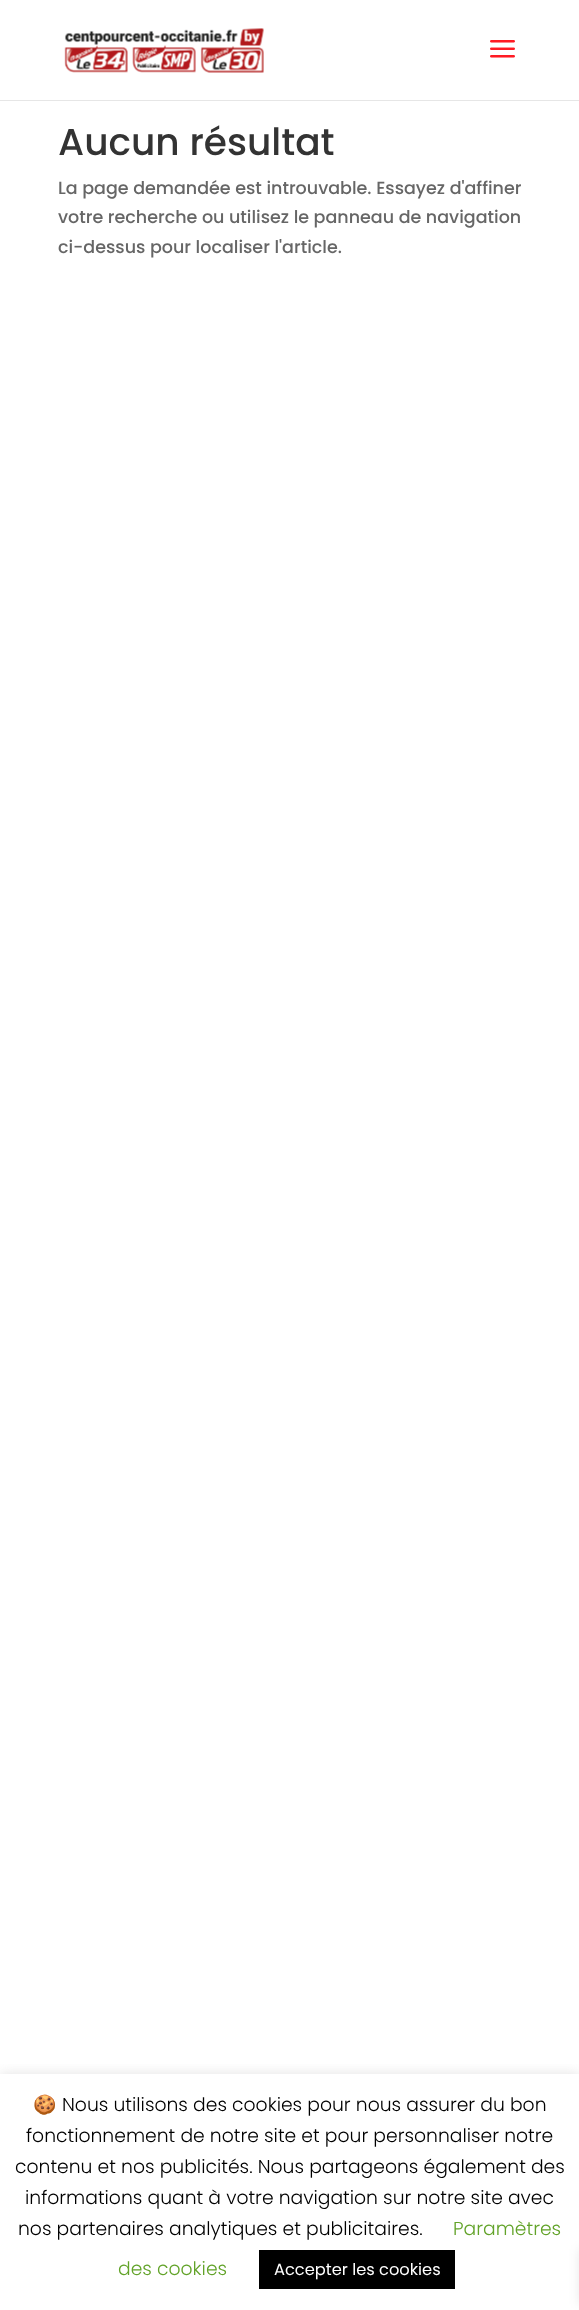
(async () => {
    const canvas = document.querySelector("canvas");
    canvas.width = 579;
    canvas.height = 2310;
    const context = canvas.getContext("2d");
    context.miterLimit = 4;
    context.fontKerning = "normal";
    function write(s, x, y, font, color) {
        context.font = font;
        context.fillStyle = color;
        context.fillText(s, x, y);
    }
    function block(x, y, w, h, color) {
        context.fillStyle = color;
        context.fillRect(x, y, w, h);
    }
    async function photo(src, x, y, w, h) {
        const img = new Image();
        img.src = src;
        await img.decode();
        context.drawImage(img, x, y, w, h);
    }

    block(0, 0, 579, 2310, "rgb(255, 255, 255)");
    block(0, 100, 579, 1, "rgb(230, 230, 230)");
    await photo("media/1.png", 64, 28, 200, 45);
    await photo("media/2.png", 490, 40, 25, 18);
    write("Aucun résultat", 58, 155, "500 37.5px Poppins", "rgb(51, 51, 51)");
    write("La page demandée est introuvable. Essayez d'affiner", 58, 194, "500 17.5px Poppins", "rgb(102, 102, 102)");
    write("votre recherche ou utilisez le panneau de navigation", 58, 223, "500 17.5px Poppins", "rgb(102, 102, 102)");
    write("ci-dessus pour localiser l'article.", 58, 253, "500 17.5px Poppins", "rgb(102, 102, 102)");
    context.save();
    context.beginPath();
    context.rect(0, 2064, 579, 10);
    context.clip();
    context.fillStyle = "rgba(172, 171, 171, 0.3)";
    context.filter = "blur(6px)";
    context.beginPath();
    context.rect(0, 2073, 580, 236);
    context.fill();
    context.filter = "none";
    context.restore();
    write("🍪", 33, 2111, "18.75px Noto Color Emoji", "rgb(0, 0, 0)");
    write("Nous utilisons des cookies pour nous assurer du bon", 62, 2111, "300 18.75px Poppins", "rgb(0, 0, 0)");
    write("fonctionnement de notre site et pour personnaliser notre", 26, 2142, "300 18.75px Poppins", "rgb(0, 0, 0)");
    write("contenu et nos publicités. Nous partageons également des", 15, 2173, "300 18.75px Poppins", "rgb(0, 0, 0)");
    write("informations quant à votre navigation sur notre site avec", 25, 2204, "300 18.75px Poppins", "rgb(0, 0, 0)");
    write("nos partenaires analytiques et publicitaires.", 18, 2235, "300 18.75px Poppins", "rgb(0, 0, 0)");
    write("Paramètres", 453, 2235, "300 18.75px Poppins", "rgb(98, 163, 41)");
    write("des cookies", 118, 2275, "300 18.75px Poppins", "rgb(98, 163, 41)");
    block(259, 2250, 196, 39, "rgb(0, 0, 0)");
    write("Accepter les cookies", 274, 2275, "16.25px Poppins", "rgb(255, 255, 255)");
    context.fillStyle = "rgba(0, 0, 0, 0.1)";
    context.filter = "blur(6px)";
    context.beginPath();
    context.rect(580, 2249, 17, 55);
    context.fill();
    context.filter = "none";
})();
